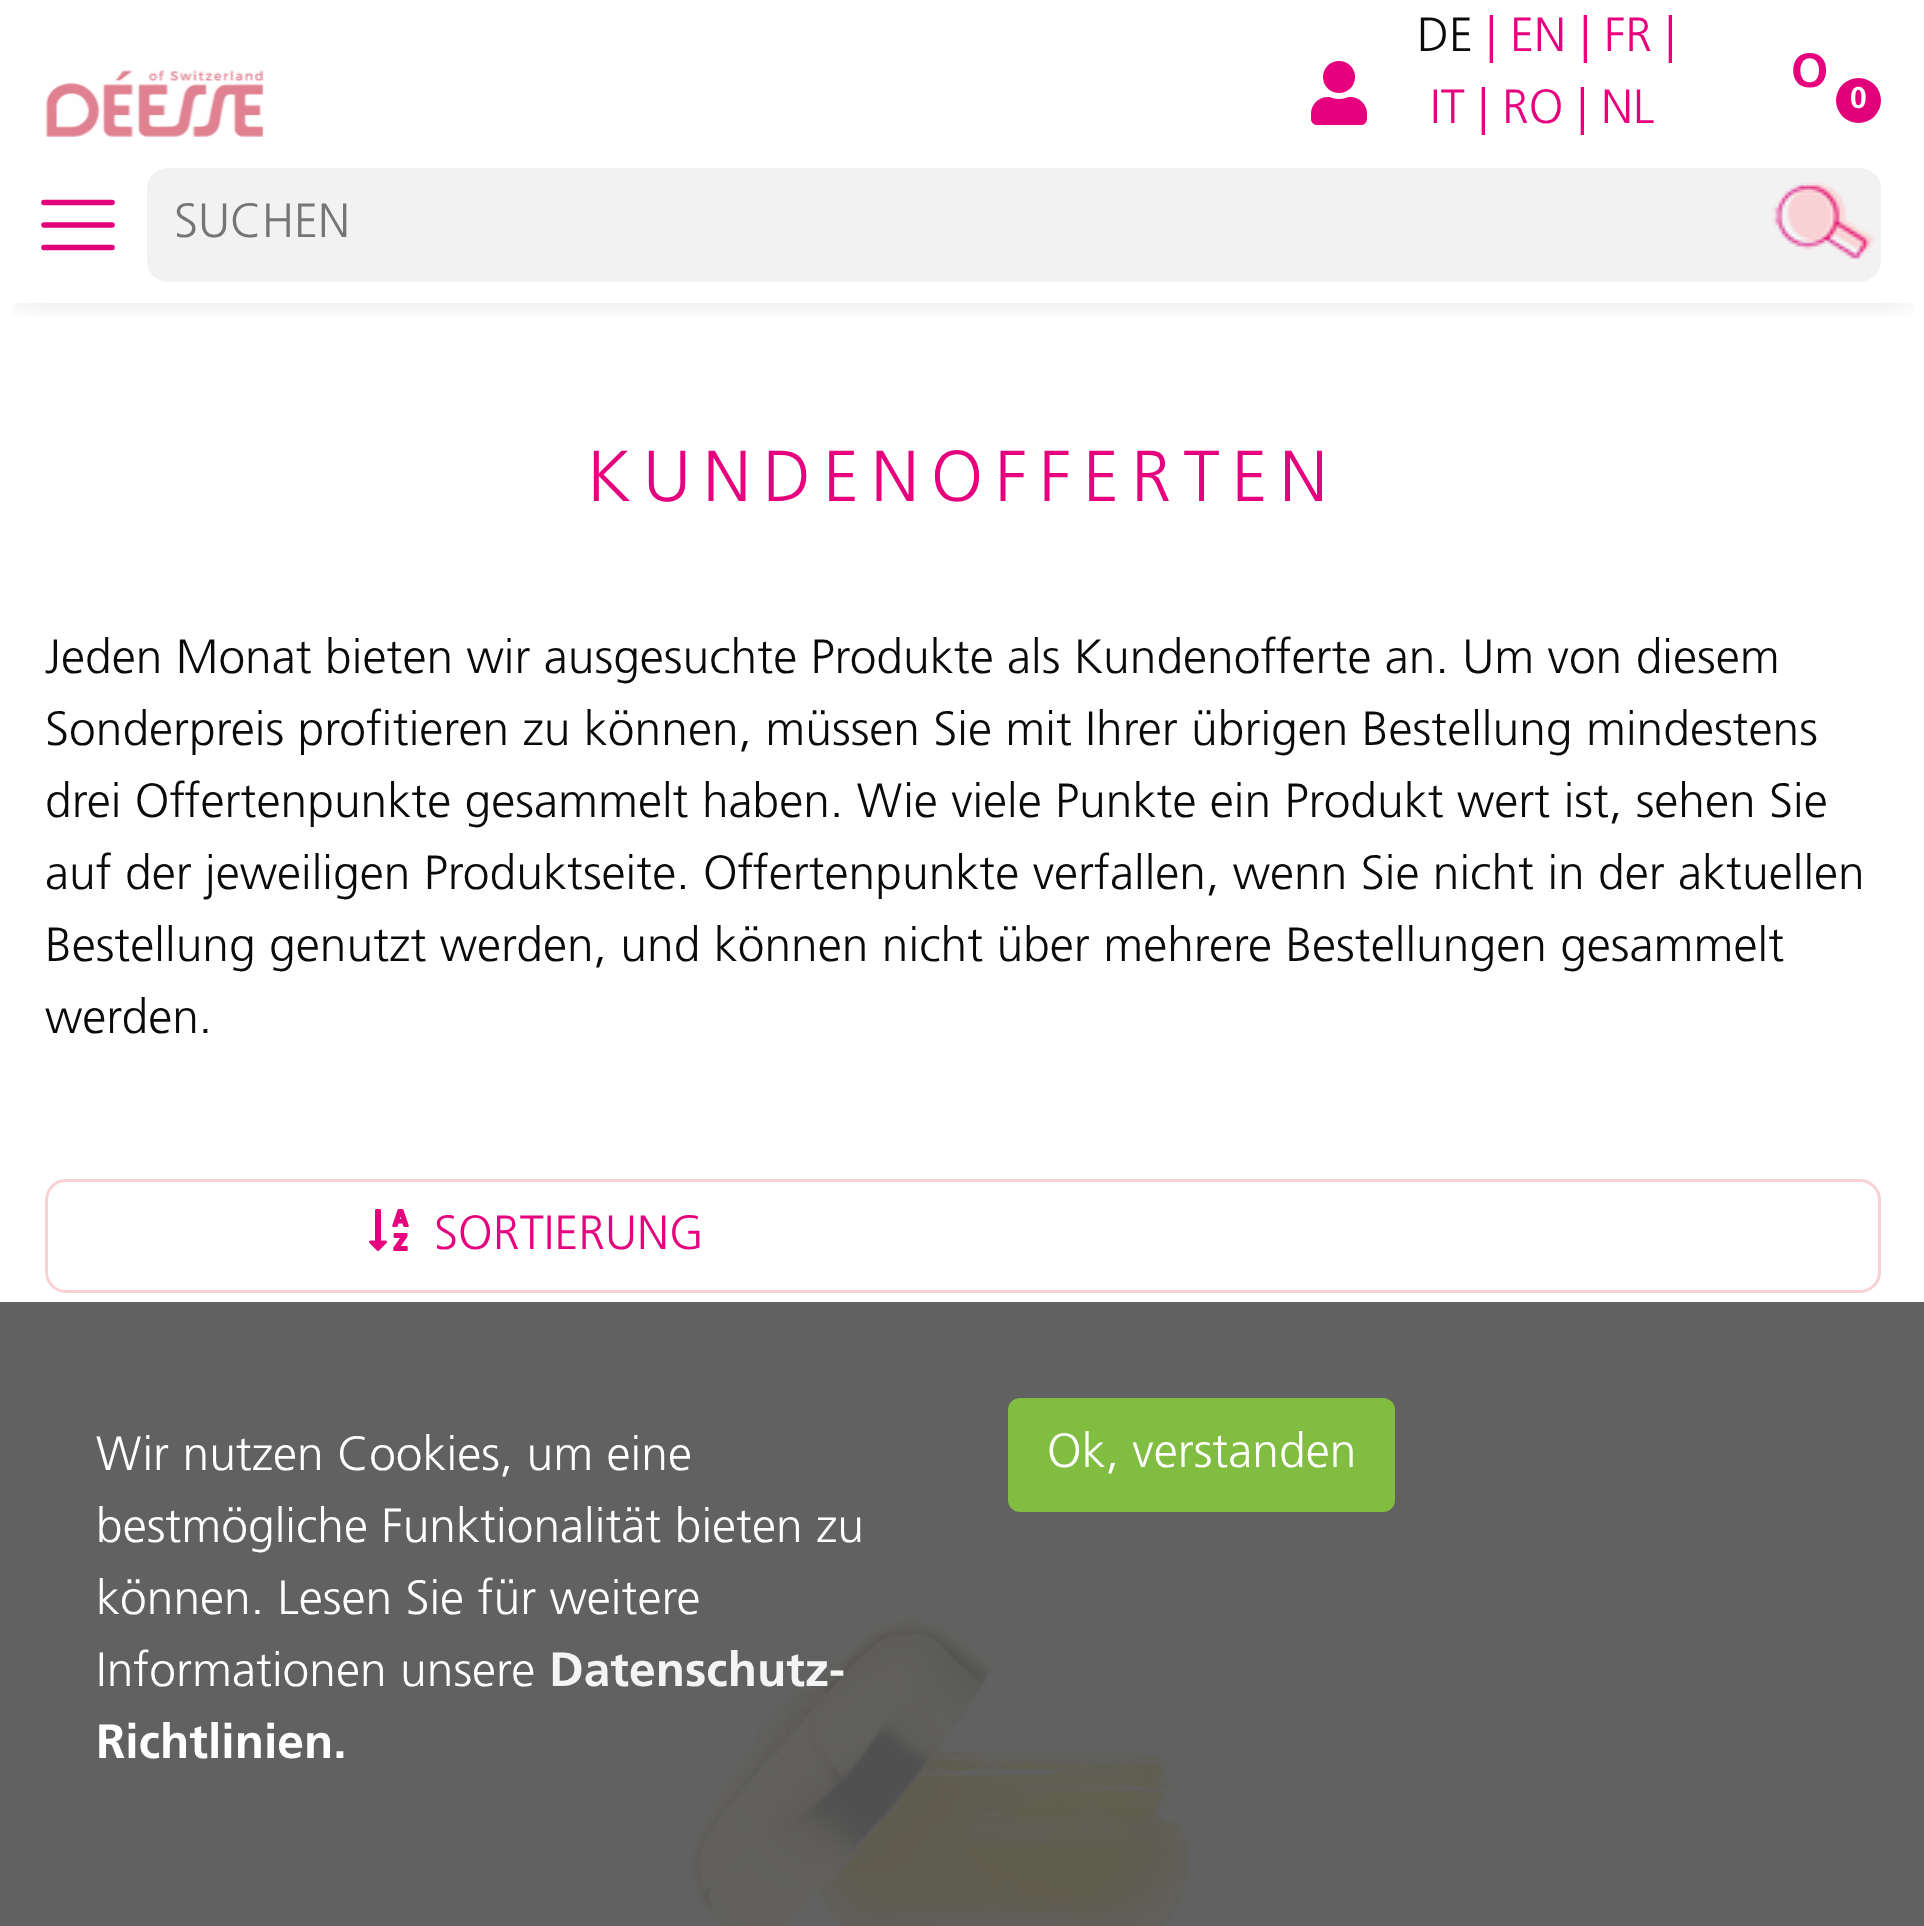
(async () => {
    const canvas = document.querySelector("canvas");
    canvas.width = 1924;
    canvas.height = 1926;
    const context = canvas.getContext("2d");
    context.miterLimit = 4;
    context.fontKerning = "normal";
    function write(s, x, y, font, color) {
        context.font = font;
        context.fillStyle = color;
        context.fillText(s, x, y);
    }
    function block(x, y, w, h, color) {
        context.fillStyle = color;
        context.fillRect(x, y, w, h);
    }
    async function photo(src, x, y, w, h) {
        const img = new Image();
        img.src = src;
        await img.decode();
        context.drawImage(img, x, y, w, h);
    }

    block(0, 0, 1924, 1926, "rgb(255, 255, 255)");
    block(0, 1302, 1924, 624, "rgb(97, 97, 97)");
    context.save();
    context.beginPath();
    context.rect(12, 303, 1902, 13);
    context.clip();
    context.fillStyle = "rgba(0, 0, 0, 0.1)";
    context.filter = "blur(15px)";
    context.beginPath();
    context.rect(15, 30, 1896, 273);
    context.fill();
    context.filter = "none";
    context.restore();
    await photo("media/1.png", 46, 70, 218, 67);
    await photo("media/2.png", 1311, 61, 56, 64);
    write("DE", 1417, 51, "300 48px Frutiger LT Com", "rgb(10, 10, 10)");
    write("|", 1486, 51, "300 48px Frutiger LT Com", "rgb(230, 0, 126)");
    write("EN", 1510, 51, "300 48px Frutiger LT Com", "rgb(230, 0, 126)");
    write("|", 1580, 51, "300 48px Frutiger LT Com", "rgb(230, 0, 126)");
    write("FR", 1604, 51, "300 48px Frutiger LT Com", "rgb(230, 0, 126)");
    write("|", 1665, 51, "300 48px Frutiger LT Com", "rgb(230, 0, 126)");
    write("IT", 1430, 123, "300 48px Frutiger LT Com", "rgb(230, 0, 126)");
    write("|", 1478, 123, "300 48px Frutiger LT Com", "rgb(230, 0, 126)");
    write("RO", 1502, 123, "300 48px Frutiger LT Com", "rgb(230, 0, 126)");
    write("|", 1577, 123, "300 48px Frutiger LT Com", "rgb(230, 0, 126)");
    write("NL", 1601, 123, "300 48px Frutiger LT Com", "rgb(230, 0, 126)");
    write("O", 1791, 87, "bold 48px Frutiger LT Com", "rgb(230, 0, 126)");
    context.fillStyle = "rgb(226, 0, 122)";
    context.beginPath();
    context.arc(1858.5, 100.5, 22.5, 0, Math.PI * 2);
    context.fill();
    write("0", 1850, 108, "bold 30px Frutiger LT Com", "rgb(255, 255, 255)");
    context.beginPath();
    context.moveTo(44, 202.5);
    context.lineTo(112, 202.5);
    context.moveTo(44, 225);
    context.lineTo(112, 225);
    context.moveTo(44, 247.5);
    context.lineTo(112, 247.5);
    context.strokeStyle = "rgb(226, 0, 122)";
    context.lineWidth = 5.6;
    context.lineCap = "round";
    context.stroke();
    context.fillStyle = "rgb(242, 242, 242)";
    context.beginPath();
    context.roundRect(148.5, 169.5, 1731, 111, 19.5);
    context.fill();
    context.strokeStyle = "rgb(242, 242, 242)";
    context.lineWidth = 3;
    context.stroke();
    write("SUCHEN", 174, 237, "300 48px Frutiger LT Com", "rgb(117, 117, 117)");
    await photo("media/3.png", 1772, 182, 104, 77);
    context.letterSpacing = "12px";
    write("KUNDENOFFERTEN", 587, 501, "300 72px Frutiger LT Com", "rgb(230, 0, 126)");
    context.letterSpacing = "0px";
    write("Jeden Monat bieten wir ausgesuchte Produkte als Kundenofferte an. Um von diesem", 45, 673, "300 48px Frutiger LT Com", "rgb(10, 10, 10)");
    write("Sonderpreis profitieren zu können, müssen Sie mit Ihrer übrigen Bestellung mindestens", 45, 745, "300 48px Frutiger LT Com", "rgb(10, 10, 10)");
    write("drei Offertenpunkte gesammelt haben. Wie viele Punkte ein Produkt wert ist, sehen Sie", 45, 817, "300 48px Frutiger LT Com", "rgb(10, 10, 10)");
    write("auf der jeweiligen Produktseite. Offertenpunkte verfallen, wenn Sie nicht in der aktuellen", 45, 889, "300 48px Frutiger LT Com", "rgb(10, 10, 10)");
    write("Bestellung genutzt werden, und können nicht über mehrere Bestellungen gesammelt", 45, 961, "300 48px Frutiger LT Com", "rgb(10, 10, 10)");
    write("werden.", 45, 1033, "300 48px Frutiger LT Com", "rgb(10, 10, 10)");
    context.beginPath();
    context.roundRect(46.5, 1180.5, 1833, 111, 19.5);
    context.strokeStyle = "rgb(249, 209, 212)";
    context.stroke();
    await photo("media/4.png", 369, 1209, 40, 42);
    write("SORTIERUNG", 434, 1249, "300 48px Frutiger LT Com", "rgb(230, 0, 126)");
    await photo("media/5.png", 688, 1615, 509, 311);
    write("Wir nutzen Cookies, um eine", 96, 1470, "300 48px Frutiger LT Com", "rgb(255, 255, 255)");
    write("bestmögliche Funktionalität bieten zu", 96, 1542, "300 48px Frutiger LT Com", "rgb(255, 255, 255)");
    write("können. Lesen Sie für weitere", 96, 1614, "300 48px Frutiger LT Com", "rgb(255, 255, 255)");
    write("Informationen unsere", 96, 1686, "300 48px Frutiger LT Com", "rgb(255, 255, 255)");
    write("Datenschutz-", 549, 1686, "bold 48px Frutiger LT Com", "rgb(244, 244, 244)");
    write("Richtlinien.", 96, 1758, "bold 48px Frutiger LT Com", "rgb(255, 255, 255)");
    context.fillStyle = "rgb(128, 189, 65)";
    context.beginPath();
    context.roundRect(1009.5, 1399.5, 384, 111, 10.5);
    context.fill();
    context.strokeStyle = "rgb(128, 189, 65)";
    context.stroke();
    write("Ok, verstanden", 1047, 1467, "300 48px Frutiger LT Com", "rgb(255, 255, 255)");
})();
